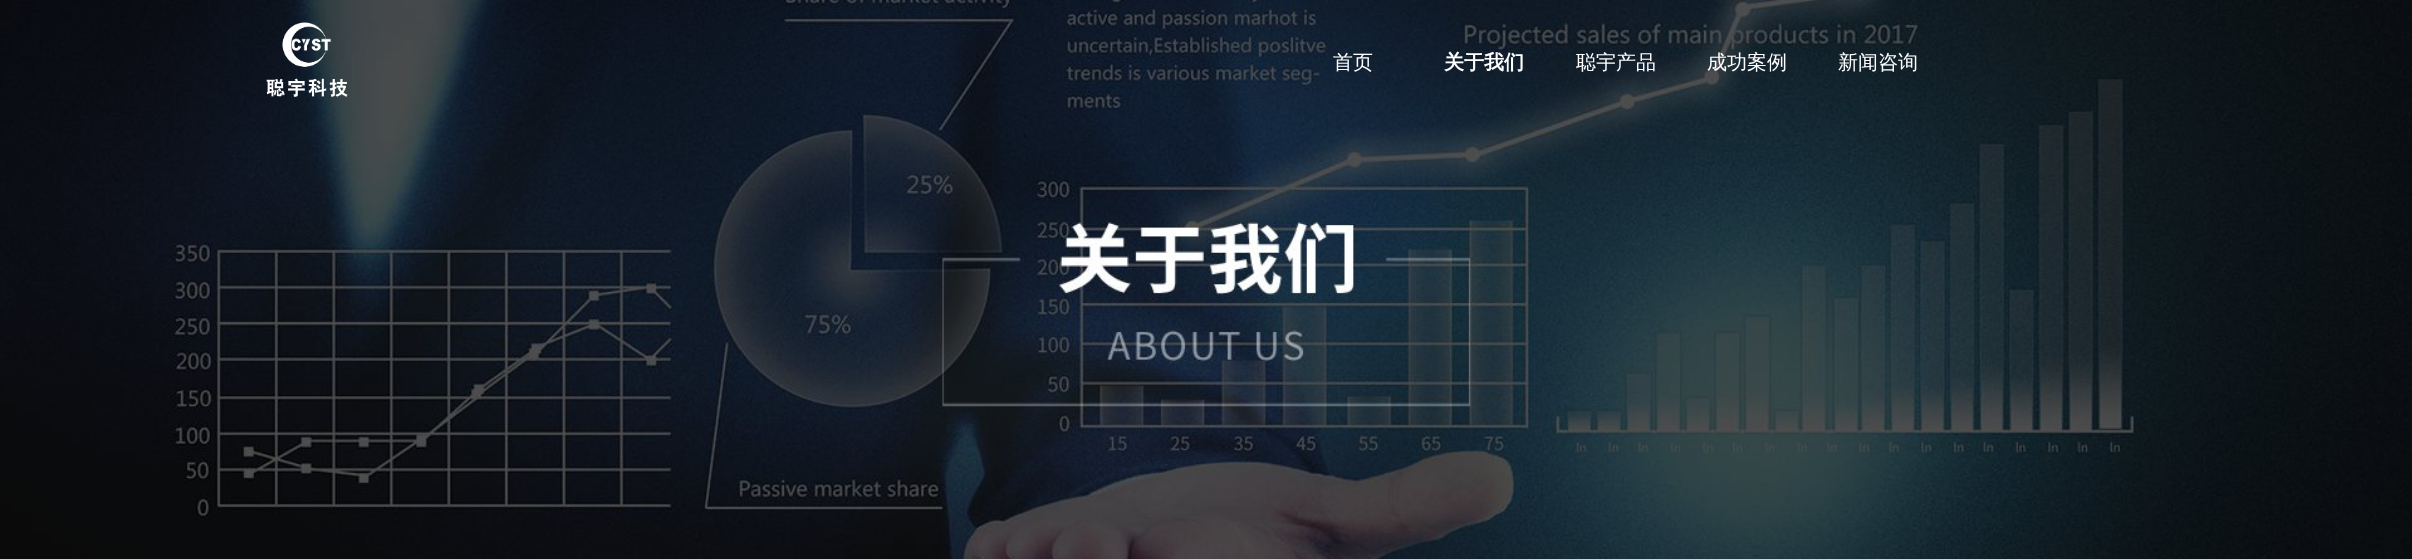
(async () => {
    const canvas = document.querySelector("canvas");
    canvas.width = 2412;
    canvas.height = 559;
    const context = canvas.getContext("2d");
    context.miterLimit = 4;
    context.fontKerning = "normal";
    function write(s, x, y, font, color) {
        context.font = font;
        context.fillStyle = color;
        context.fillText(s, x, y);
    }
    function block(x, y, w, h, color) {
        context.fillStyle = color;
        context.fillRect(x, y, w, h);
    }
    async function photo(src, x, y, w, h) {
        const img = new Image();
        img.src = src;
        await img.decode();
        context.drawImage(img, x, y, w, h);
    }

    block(0, 0, 2412, 559, "rgb(255, 255, 255)");
    await photo("media/1.png", 0, 0, 2412, 559);
    await photo("media/2.png", 266, 22, 82, 75);
    write("首页", 1333, 69, "500 20px WenQuanYi Zen Hei", "rgb(255, 255, 255)");
    write("关于我们", 1444, 69, "bold 20px WenQuanYi Zen Hei", "rgb(255, 255, 255)");
    write("聪宇产品", 1576, 69, "500 20px WenQuanYi Zen Hei", "rgb(255, 255, 255)");
    write("成功案例", 1707, 69, "500 20px WenQuanYi Zen Hei", "rgb(255, 255, 255)");
    write("新闻咨询", 1838, 69, "500 20px WenQuanYi Zen Hei", "rgb(255, 255, 255)");
})();
